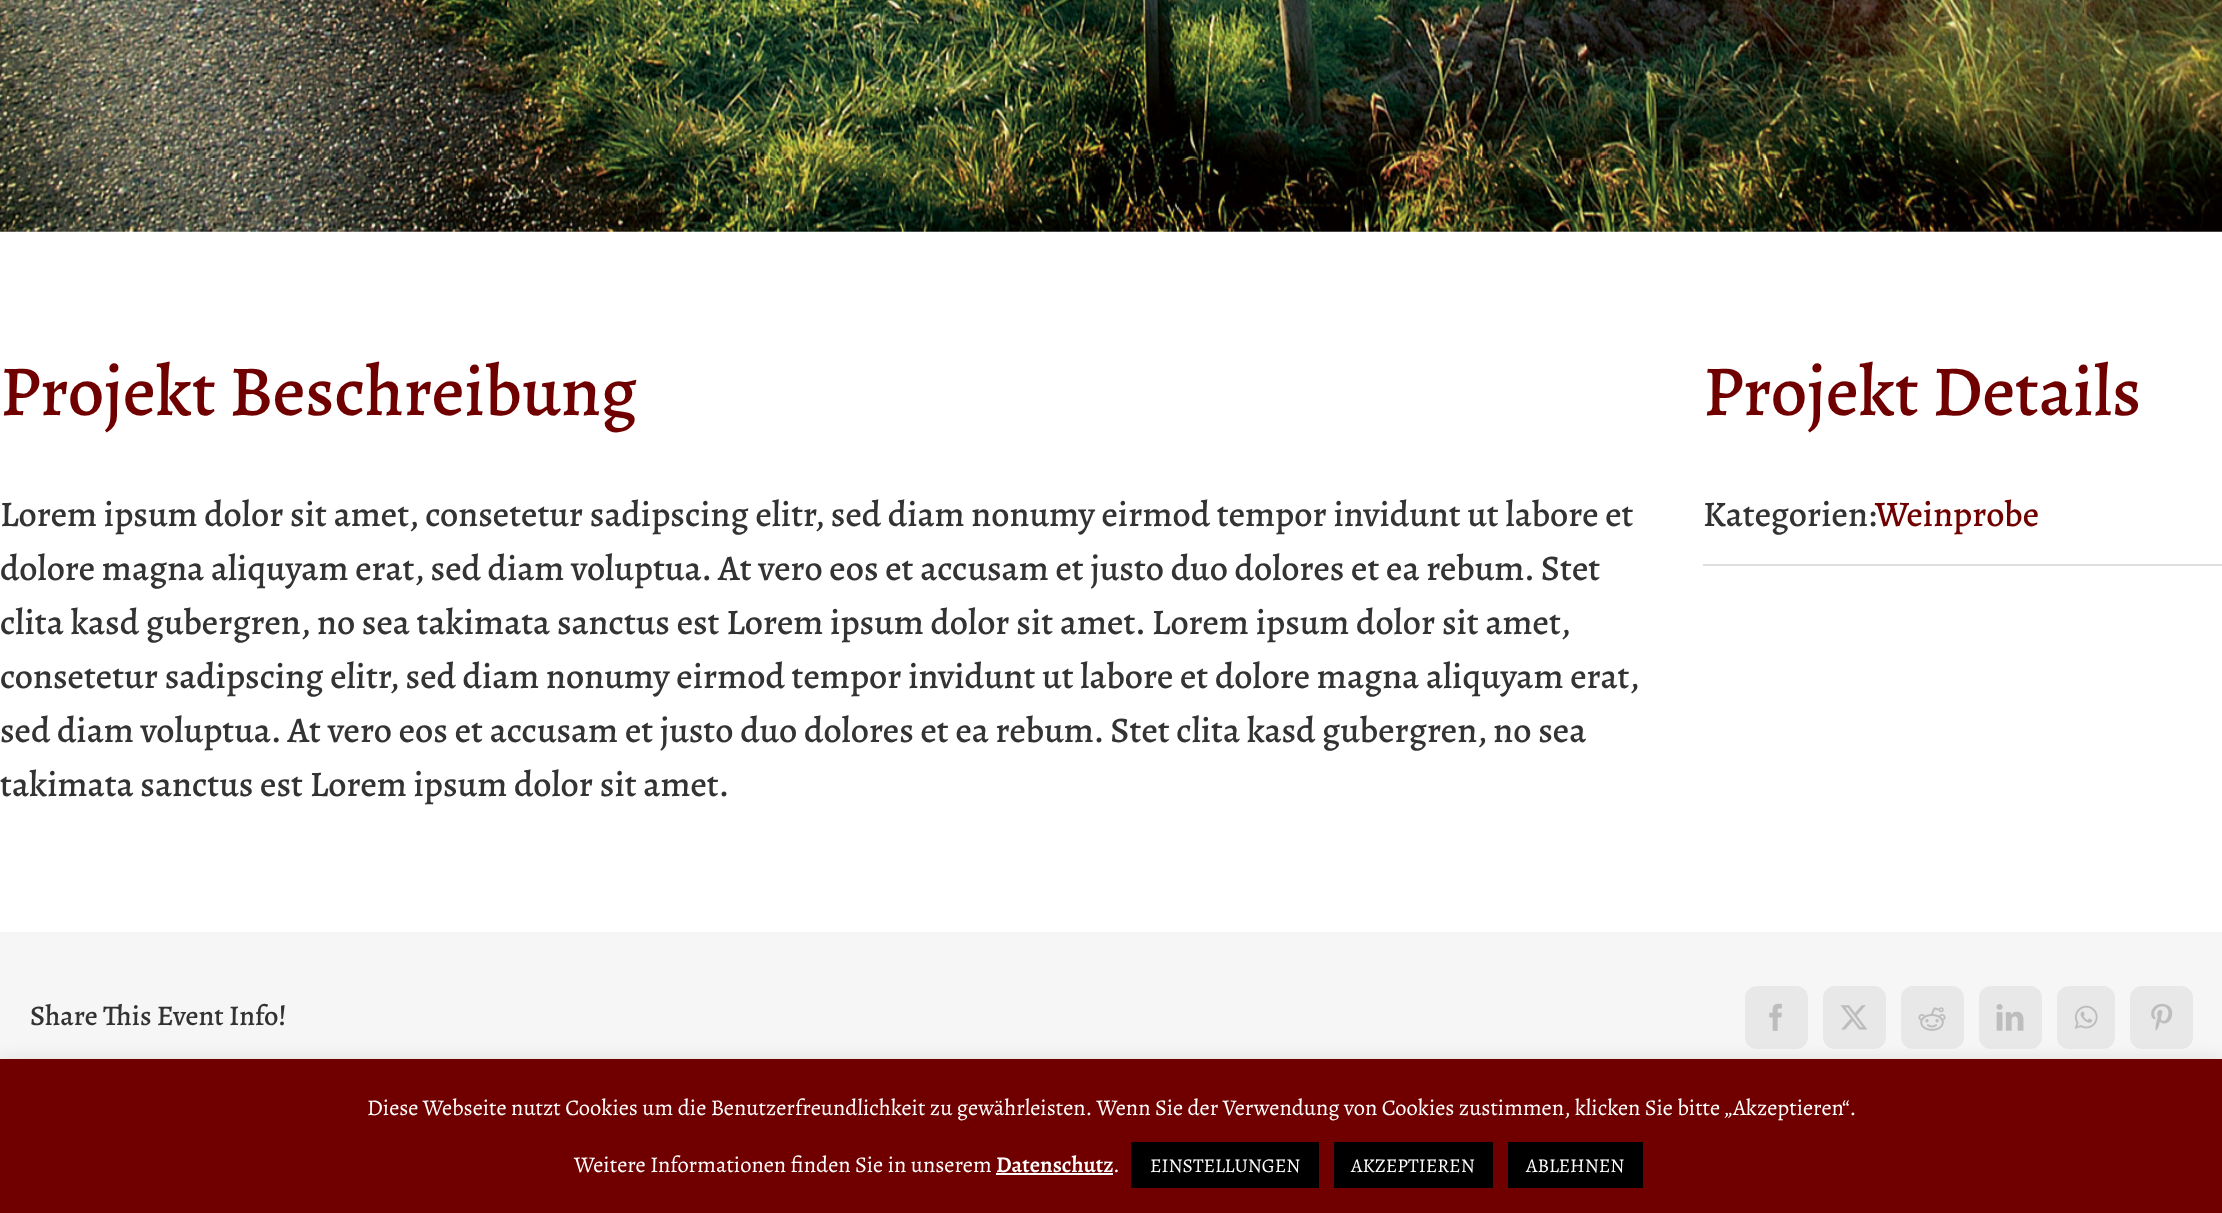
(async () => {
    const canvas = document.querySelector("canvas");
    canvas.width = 2222;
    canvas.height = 1213;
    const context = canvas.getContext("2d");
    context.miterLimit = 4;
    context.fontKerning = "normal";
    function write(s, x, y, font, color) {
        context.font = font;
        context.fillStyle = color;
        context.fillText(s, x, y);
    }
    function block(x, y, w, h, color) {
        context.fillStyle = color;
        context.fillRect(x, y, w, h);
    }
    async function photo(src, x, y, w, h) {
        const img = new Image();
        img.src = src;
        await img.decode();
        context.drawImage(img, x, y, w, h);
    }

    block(0, 0, 2222, 1213, "rgb(255, 255, 255)");
    await photo("media/1.png", 0, 0, 2222, 232);
    write("Projekt Beschreibung", 0, 415, "500 72px Alegreya", "rgb(112, 0, 0)");
    write("Lorem ipsum dolor sit amet, consetetur sadipscing elitr, sed diam nonumy eirmod tempor invidunt ut labore et", 0, 526, "500 36px Alegreya", "rgb(51, 51, 51)");
    write("dolore magna aliquyam erat, sed diam voluptua. At vero eos et accusam et justo duo dolores et ea rebum. Stet", 0, 580, "500 36px Alegreya", "rgb(51, 51, 51)");
    write("clita kasd gubergren, no sea takimata sanctus est Lorem ipsum dolor sit amet. Lorem ipsum dolor sit amet,", 0, 634, "500 36px Alegreya", "rgb(51, 51, 51)");
    write("consetetur sadipscing elitr, sed diam nonumy eirmod tempor invidunt ut labore et dolore magna aliquyam erat,", 0, 688, "500 36px Alegreya", "rgb(51, 51, 51)");
    write("sed diam voluptua. At vero eos et accusam et justo duo dolores et ea rebum. Stet clita kasd gubergren, no sea", 0, 742, "500 36px Alegreya", "rgb(51, 51, 51)");
    write("takimata sanctus est Lorem ipsum dolor sit amet.", 0, 796, "500 36px Alegreya", "rgb(51, 51, 51)");
    write("Projekt Details", 1703, 415, "500 72px Alegreya", "rgb(112, 0, 0)");
    block(1703, 564, 519, 2, "rgb(224, 222, 222)");
    write("Kategorien:", 1703, 526, "500 36px Alegreya", "rgb(51, 51, 51)");
    write("Weinprobe", 1875, 526, "500 36px Alegreya", "rgb(112, 0, 0)");
    block(0, 932, 2222, 127, "rgb(246, 246, 246)");
    write("Share This Event Info!", 30, 1025, "500 28.5px Alegreya", "rgb(51, 51, 51)");
    context.fillStyle = "rgb(232, 232, 232)";
    context.beginPath();
    context.roundRect(1746, 987, 61, 61, 11);
    context.fill();
    context.strokeStyle = "rgb(232, 232, 232)";
    context.lineWidth = 2;
    context.stroke();
    await photo("media/2.png", 1769, 1003, 13, 28);
    context.beginPath();
    context.roundRect(1824, 987, 61, 61, 11);
    context.fill();
    context.stroke();
    await photo("media/3.png", 1840, 1005, 28, 25);
    context.beginPath();
    context.roundRect(1902, 987, 61, 61, 11);
    context.fill();
    context.stroke();
    await photo("media/4.png", 1918, 1007, 28, 24);
    context.beginPath();
    context.roundRect(1980, 987, 61, 61, 11);
    context.fill();
    context.stroke();
    await photo("media/5.png", 1996, 1004, 28, 27);
    context.beginPath();
    context.roundRect(2058, 987, 56, 61, 11);
    context.fill();
    context.stroke();
    await photo("media/6.png", 2074, 1005, 24, 24);
    context.beginPath();
    context.roundRect(2131, 987, 61, 61, 11);
    context.fill();
    context.stroke();
    await photo("media/7.png", 2151, 1003, 22, 28);
    context.fillStyle = "rgba(172, 171, 171, 0.3)";
    context.filter = "blur(7.5px)";
    context.beginPath();
    context.rect(0, 1058, 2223, 154);
    context.fill();
    context.filter = "none";
    block(0, 1059, 2222, 154, "rgb(112, 0, 0)");
    write("Diese Webseite nutzt Cookies um die Benutzerfreundlichkeit zu gewährleisten. Wenn Sie der Verwendung von Cookies zustimmen, klicken Sie bitte „Akzeptieren“.", 367, 1115, "22.5px Alegreya", "rgb(255, 255, 255)");
    write("Weitere Informationen finden Sie in unserem", 574, 1172, "22.5px Alegreya", "rgb(255, 255, 255)");
    write("Datenschutz", 996, 1172, "600 22.5px Alegreya", "rgb(255, 255, 255)");
    block(996, 1173, 117, 2, "rgb(255, 255, 255)");
    write(".", 1113, 1172, "22.5px Alegreya", "rgb(255, 255, 255)");
    block(1131, 1142, 188, 46, "rgb(0, 0, 0)");
    write("EINSTELLUNGEN", 1150, 1172, "19.5px Alegreya", "rgb(255, 255, 255)");
    block(1334, 1142, 159, 46, "rgb(0, 0, 0)");
    write("AKZEPTIEREN", 1351, 1172, "19.5px Alegreya", "rgb(255, 255, 255)");
    block(1508, 1142, 135, 46, "rgb(0, 0, 0)");
    write("ABLEHNEN", 1526, 1172, "19.5px Alegreya", "rgb(255, 255, 255)");
})();
